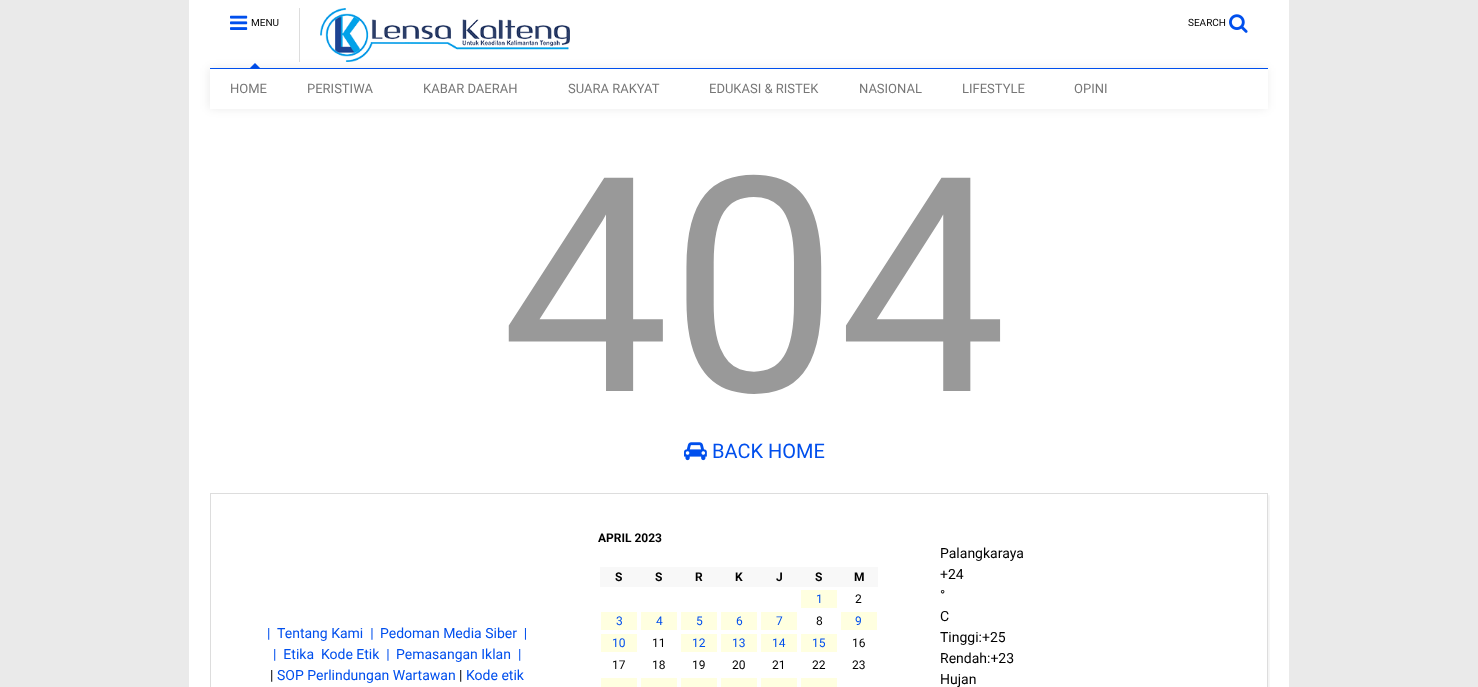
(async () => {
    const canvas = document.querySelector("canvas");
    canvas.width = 1478;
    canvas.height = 687;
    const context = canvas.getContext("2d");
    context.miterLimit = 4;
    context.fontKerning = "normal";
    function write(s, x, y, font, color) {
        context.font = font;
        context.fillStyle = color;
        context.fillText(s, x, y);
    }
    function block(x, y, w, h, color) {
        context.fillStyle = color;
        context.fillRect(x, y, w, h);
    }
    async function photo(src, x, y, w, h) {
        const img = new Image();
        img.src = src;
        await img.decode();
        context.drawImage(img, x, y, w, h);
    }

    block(0, 0, 1478, 687, "rgb(234, 234, 234)");
    block(189, 0, 1100, 687, "rgb(255, 255, 255)");
    await photo("media/1.png", 230, 15, 18, 15);
    write("MENU", 251, 26, "10px Roboto", "rgb(0, 0, 0)");
    context.fillStyle = "rgb(0, 79, 237)";
    context.beginPath();
    context.moveTo(260, 68);
    context.lineTo(250, 68);
    context.lineTo(255, 63);
    context.closePath();
    context.fill();
    block(299, 8, 1, 54, "rgb(221, 221, 221)");
    await photo("media/2.png", 320, 8, 250, 54);
    write("SEARCH", 1188, 26, "10px Roboto", "rgb(0, 0, 0)");
    await photo("media/3.png", 1229, 14, 19, 19);
    context.save();
    context.beginPath();
    context.moveTo(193, 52);
    context.lineTo(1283, 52);
    context.lineTo(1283, 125);
    context.lineTo(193, 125);
    context.closePath();
    context.moveTo(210, 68);
    context.lineTo(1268, 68);
    context.lineTo(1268, 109);
    context.lineTo(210, 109);
    context.closePath();
    context.clip("evenodd");
    context.fillStyle = "rgba(0, 0, 0, 0.08)";
    context.filter = "blur(5px)";
    context.beginPath();
    context.rect(209, 68, 1058, 41);
    context.fill();
    context.filter = "none";
    context.restore();
    block(210, 68, 1058, 1, "rgb(0, 79, 237)");
    write("HOME", 230, 93, "13px Roboto", "rgb(119, 119, 119)");
    write("PERISTIWA", 307, 93, "13px Roboto", "rgb(119, 119, 119)");
    write("KABAR DAERAH", 423, 93, "13px Roboto", "rgb(119, 119, 119)");
    write("SUARA RAKYAT", 568, 93, "13px Roboto", "rgb(119, 119, 119)");
    write("EDUKASI & RISTEK", 709, 93, "13px Roboto", "rgb(119, 119, 119)");
    write("NASIONAL", 859, 93, "13px Roboto", "rgb(119, 119, 119)");
    write("LIFESTYLE", 962, 93, "13px Roboto", "rgb(119, 119, 119)");
    write("OPINI", 1074, 93, "13px Roboto", "rgb(119, 119, 119)");
    write("404", 501, 391, "300px Roboto", "rgb(153, 153, 153)");
    await photo("media/4.png", 684, 442, 23, 19);
    write("BACK HOME", 712, 458, "20px Roboto", "rgb(0, 79, 237)");
    context.save();
    context.beginPath();
    context.rect(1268, 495, 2, 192);
    context.clip();
    context.fillStyle = "rgba(0, 0, 0, 0.05)";
    context.filter = "blur(1.5px)";
    context.beginPath();
    context.rect(212, 495, 1058, 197);
    context.fill();
    context.filter = "none";
    context.restore();
    context.strokeStyle = "rgb(221, 221, 221)";
    context.strokeRect(210.5, 493.5, 1057, 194);
    write("|  Tentang Kami  |", 267, 638, "14px Roboto", "rgb(0, 79, 237)");
    write("Pedoman Media Siber  |", 380, 638, "14px Roboto", "rgb(0, 79, 237)");
    write("|  Etika  Kode Etik  |", 273, 659, "14px Roboto", "rgb(0, 79, 237)");
    write("Pemasangan Iklan  |", 396, 659, "14px Roboto", "rgb(0, 79, 237)");
    write("|", 270, 680, "14px Roboto", "rgb(0, 0, 0)");
    write("SOP Perlindungan Wartawan", 277, 680, "14px Roboto", "rgb(0, 79, 237)");
    write("|", 459, 680, "14px Roboto", "rgb(0, 0, 0)");
    write("Kode etik", 466, 680, "14px Roboto", "rgb(0, 79, 237)");
    write("APRIL 2023", 598, 542, "bold 12px Roboto", "rgb(0, 0, 0)");
    block(600, 567, 278, 20, "rgb(248, 248, 248)");
    write("S", 615, 581, "bold 12px Roboto", "rgb(0, 0, 0)");
    write("S", 655, 581, "bold 12px Roboto", "rgb(0, 0, 0)");
    write("R", 695, 581, "bold 12px Roboto", "rgb(0, 0, 0)");
    write("K", 735, 581, "bold 12px Roboto", "rgb(0, 0, 0)");
    write("J", 776, 581, "bold 12px Roboto", "rgb(0, 0, 0)");
    write("S", 815, 581, "bold 12px Roboto", "rgb(0, 0, 0)");
    write("M", 854, 581, "bold 12px Roboto", "rgb(0, 0, 0)");
    block(801, 590, 36, 18, "rgb(255, 255, 224)");
    write("1", 816, 603, "12px Roboto", "rgb(0, 79, 237)");
    write("2", 855, 603, "12px Roboto", "rgb(0, 0, 0)");
    block(601, 612, 36, 18, "rgb(255, 255, 224)");
    write("3", 616, 625, "12px Roboto", "rgb(0, 79, 237)");
    block(641, 612, 36, 18, "rgb(255, 255, 224)");
    write("4", 656, 625, "12px Roboto", "rgb(0, 79, 237)");
    block(681, 612, 36, 18, "rgb(255, 255, 224)");
    write("5", 696, 625, "12px Roboto", "rgb(0, 79, 237)");
    block(721, 612, 36, 18, "rgb(255, 255, 224)");
    write("6", 736, 625, "12px Roboto", "rgb(0, 79, 237)");
    block(761, 612, 36, 18, "rgb(255, 255, 224)");
    write("7", 776, 625, "12px Roboto", "rgb(0, 79, 237)");
    write("8", 816, 625, "12px Roboto", "rgb(0, 0, 0)");
    block(841, 612, 36, 18, "rgb(255, 255, 224)");
    write("9", 855, 625, "12px Roboto", "rgb(0, 79, 237)");
    block(601, 634, 36, 18, "rgb(255, 255, 224)");
    write("10", 612, 647, "12px Roboto", "rgb(0, 79, 237)");
    write("11", 652, 647, "12px Roboto", "rgb(0, 0, 0)");
    block(681, 634, 36, 18, "rgb(255, 255, 224)");
    write("12", 692, 647, "12px Roboto", "rgb(0, 79, 237)");
    block(721, 634, 36, 18, "rgb(255, 255, 224)");
    write("13", 732, 647, "12px Roboto", "rgb(0, 79, 237)");
    block(761, 634, 36, 18, "rgb(255, 255, 224)");
    write("14", 772, 647, "12px Roboto", "rgb(0, 79, 237)");
    block(801, 634, 36, 18, "rgb(255, 255, 224)");
    write("15", 812, 647, "12px Roboto", "rgb(0, 79, 237)");
    write("16", 852, 647, "12px Roboto", "rgb(0, 0, 0)");
    write("17", 612, 669, "12px Roboto", "rgb(0, 0, 0)");
    write("18", 652, 669, "12px Roboto", "rgb(0, 0, 0)");
    write("19", 692, 669, "12px Roboto", "rgb(0, 0, 0)");
    write("20", 732, 669, "12px Roboto", "rgb(0, 0, 0)");
    write("21", 772, 669, "12px Roboto", "rgb(0, 0, 0)");
    write("22", 812, 669, "12px Roboto", "rgb(0, 0, 0)");
    write("23", 852, 669, "12px Roboto", "rgb(0, 0, 0)");
    block(601, 678, 36, 9, "rgb(255, 255, 224)");
    block(641, 678, 36, 9, "rgb(255, 255, 224)");
    block(681, 678, 36, 9, "rgb(255, 255, 224)");
    block(721, 678, 36, 9, "rgb(255, 255, 224)");
    block(761, 678, 36, 9, "rgb(255, 255, 224)");
    block(801, 678, 36, 9, "rgb(255, 255, 224)");
    write("Palangkaraya", 940, 558, "14px Roboto", "rgb(0, 0, 0)");
    write("+24", 940, 579, "14px Roboto", "rgb(0, 0, 0)");
    write("°", 940, 600, "14px Roboto", "rgb(0, 0, 0)");
    write("C", 940, 621, "14px Roboto", "rgb(0, 0, 0)");
    write("Tinggi:+25", 940, 642, "14px Roboto", "rgb(0, 0, 0)");
    write("Rendah:+23", 940, 663, "14px Roboto", "rgb(0, 0, 0)");
    write("Hujan", 940, 684, "14px Roboto", "rgb(0, 0, 0)");
})();
